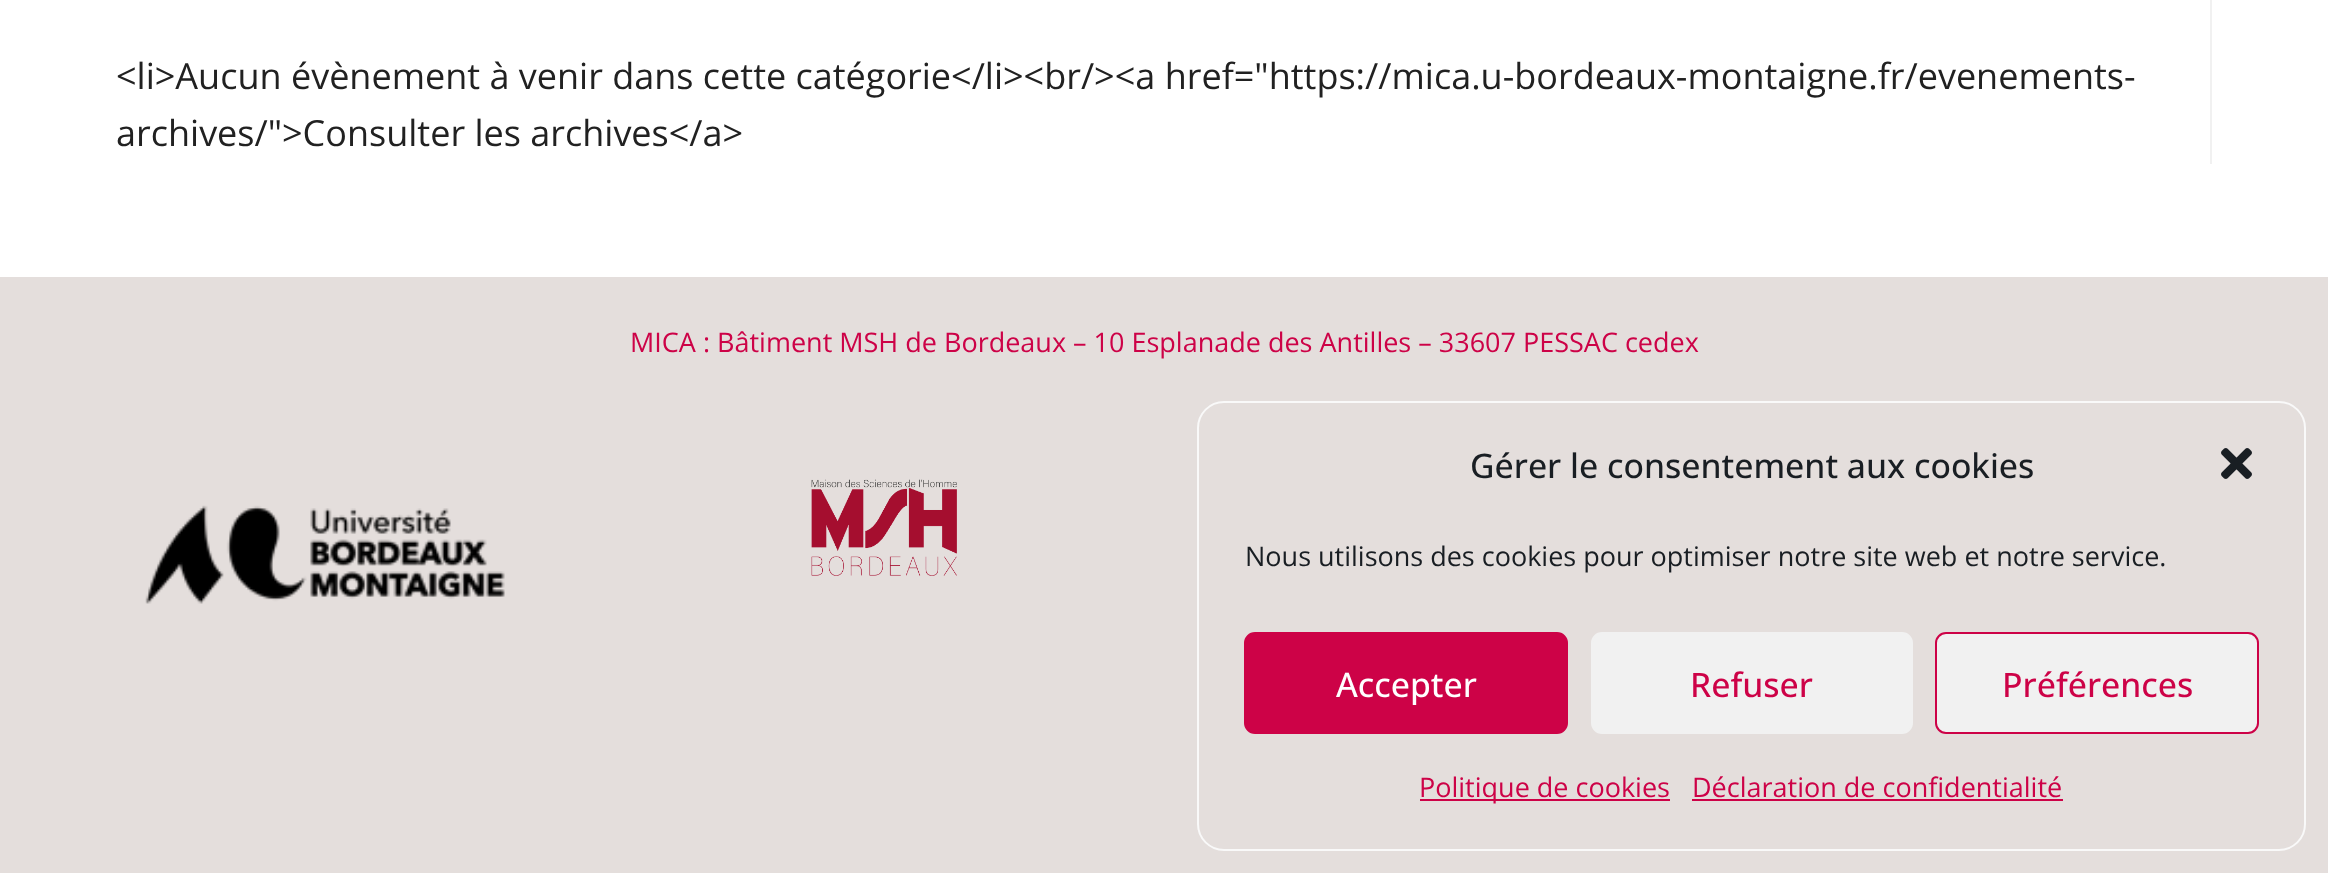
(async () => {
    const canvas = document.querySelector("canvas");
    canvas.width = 2328;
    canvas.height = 873;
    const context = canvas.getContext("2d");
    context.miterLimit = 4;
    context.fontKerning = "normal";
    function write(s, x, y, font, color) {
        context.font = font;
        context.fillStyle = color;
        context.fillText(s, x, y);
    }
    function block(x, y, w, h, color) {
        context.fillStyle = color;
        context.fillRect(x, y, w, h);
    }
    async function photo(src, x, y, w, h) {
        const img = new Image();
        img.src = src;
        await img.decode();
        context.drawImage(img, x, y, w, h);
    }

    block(0, 0, 2328, 873, "rgb(255, 255, 255)");
    block(2210, 0, 2, 164, "rgb(241, 241, 241)");
    write("<li>Aucun évènement à venir dans cette catégorie<\/li><br/><a href=\"https://mica.u-bordeaux-montaigne.fr/evenements-", 116, 89, "36px Open Sans", "rgb(33, 33, 33)");
    write("archives/\">Consulter les archives<\/a>", 116, 146, "36px Open Sans", "rgb(33, 33, 33)");
    block(0, 277, 2328, 596, "rgb(228, 222, 220)");
    write("MICA : Bâtiment MSH de Bordeaux – 10 Esplanade des Antilles – 33607 PESSAC cedex", 630, 352, "27px Open Sans", "rgb(205, 2, 71)");
    await photo("media/1.png", 145, 505, 360, 99);
    await photo("media/2.png", 811, 479, 146, 97);
    context.beginPath();
    context.roundRect(1198, 402, 1107, 448, 26);
    context.strokeStyle = "rgb(249, 249, 249)";
    context.lineWidth = 2;
    context.stroke();
    write("Gérer le consentement aux cookies", 1470, 478, "500 33.75px Open Sans", "rgb(25, 30, 35)");
    await photo("media/3.png", 2221, 448, 31, 31);
    write("Nous utilisons des cookies pour optimiser notre site web et notre service.", 1245, 566, "27px Open Sans", "rgb(25, 30, 35)");
    context.fillStyle = "rgb(205, 2, 71)";
    context.beginPath();
    context.roundRect(1245, 633, 322, 100, 10);
    context.fill();
    context.strokeStyle = "rgb(205, 2, 71)";
    context.stroke();
    write("Accepter", 1336, 697, "500 33.75px Open Sans", "rgb(255, 255, 255)");
    context.fillStyle = "rgb(241, 241, 241)";
    context.beginPath();
    context.roundRect(1592, 633, 320, 100, 10);
    context.fill();
    context.strokeStyle = "rgb(241, 241, 241)";
    context.stroke();
    write("Refuser", 1690, 697, "500 33.75px Open Sans", "rgb(205, 2, 71)");
    context.fillStyle = "rgb(241, 241, 241)";
    context.beginPath();
    context.roundRect(1936, 633, 322, 100, 10);
    context.fill();
    context.strokeStyle = "rgb(205, 2, 71)";
    context.stroke();
    write("Préférences", 2002, 697, "500 33.75px Open Sans", "rgb(205, 2, 71)");
    block(1420, 799, 250, 2, "rgb(205, 2, 71)");
    write("Politique de cookies", 1419, 797, "27px Open Sans", "rgb(205, 2, 71)");
    write("Déclaration de confidentialité", 1692, 797, "27px Open Sans", "rgb(205, 2, 71)");
    block(1692, 799, 371, 2, "rgb(205, 2, 71)");
})();
